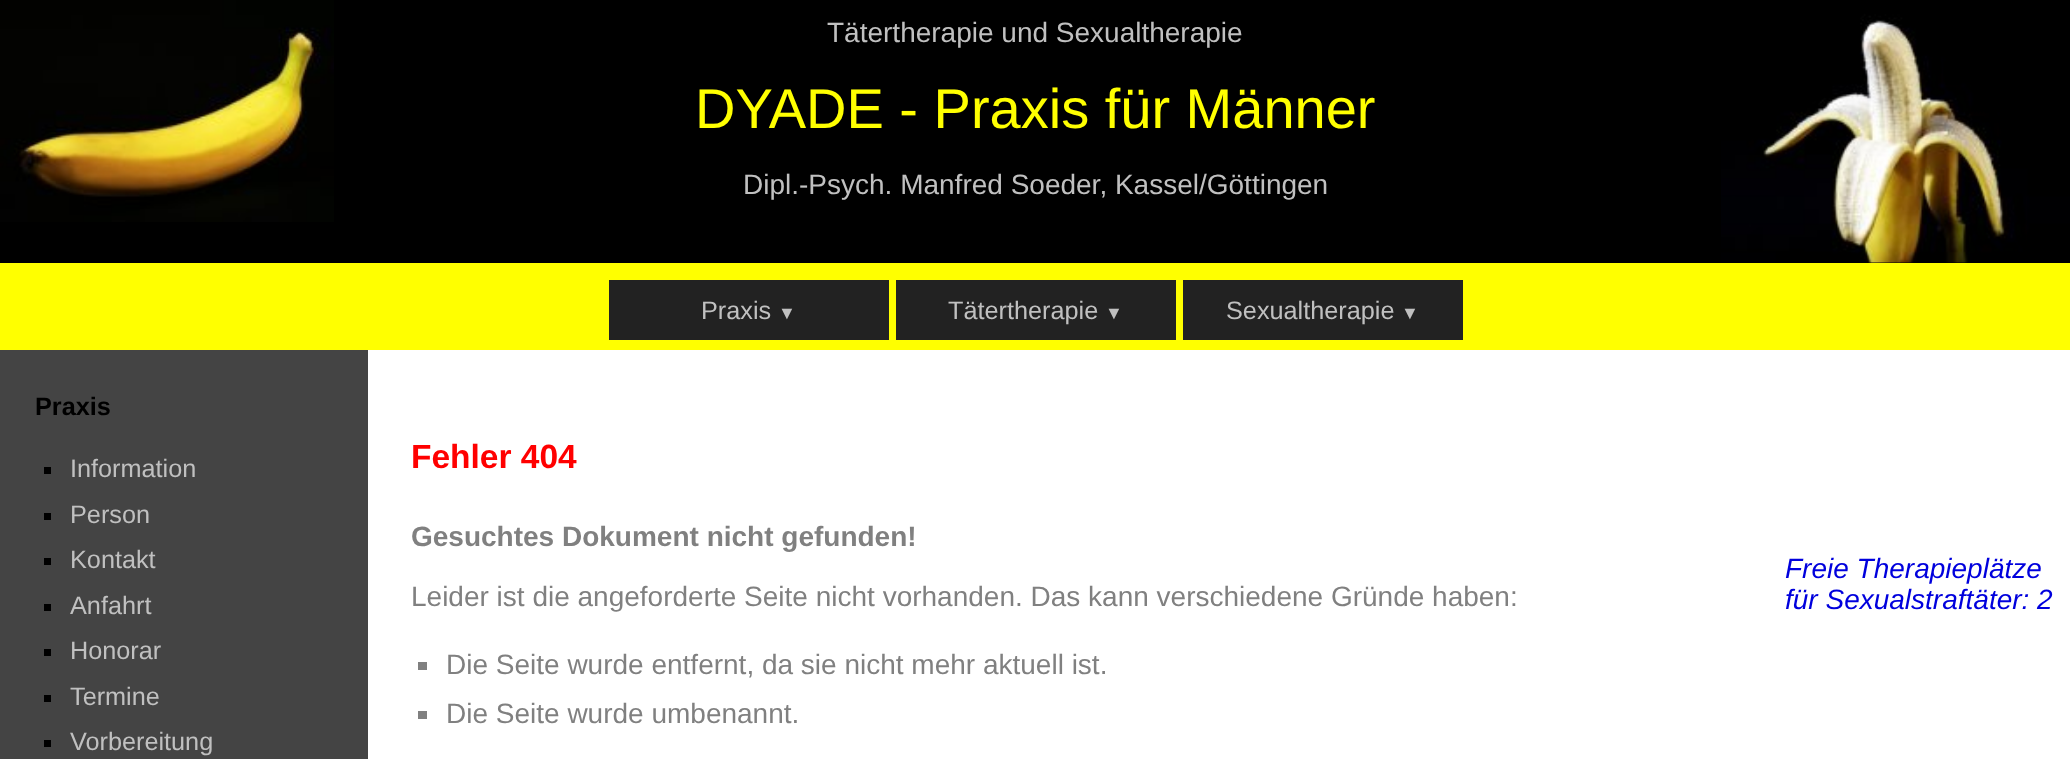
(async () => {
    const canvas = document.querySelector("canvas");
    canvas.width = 2070;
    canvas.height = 759;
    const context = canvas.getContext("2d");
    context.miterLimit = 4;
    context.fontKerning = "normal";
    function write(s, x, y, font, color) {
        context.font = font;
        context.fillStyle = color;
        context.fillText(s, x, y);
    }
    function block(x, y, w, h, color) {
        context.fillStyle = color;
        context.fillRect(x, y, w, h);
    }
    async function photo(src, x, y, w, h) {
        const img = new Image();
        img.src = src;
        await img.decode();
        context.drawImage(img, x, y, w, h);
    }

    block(0, 0, 2070, 759, "rgb(0, 0, 0)");
    await photo("media/1.png", 0, 0, 334, 222);
    write("Tätertherapie und Sexualtherapie", 827, 42, "28px Liberation Sans", "rgb(192, 192, 192)");
    await photo("media/2.png", 1721, 0, 349, 263);
    write("DYADE - Praxis für Männer", 695, 128, "56px Liberation Sans", "rgb(255, 255, 0)");
    write("Dipl.-Psych. Manfred Soeder, Kassel/Göttingen", 743, 194, "28px Liberation Sans", "rgb(192, 192, 192)");
    block(368, 350, 1702, 409, "rgb(255, 255, 255)");
    write("Freie Therapieplätze", 1785, 578, "italic 28px Liberation Sans", "rgb(0, 0, 221)");
    write("für Sexualstraftäter: 2", 1785, 609, "italic 28px Liberation Sans", "rgb(0, 0, 221)");
    block(0, 263, 2070, 87, "rgb(255, 255, 0)");
    block(609, 280, 280, 60, "rgb(34, 34, 34)");
    write("Praxis", 701, 319, "25.25px Liberation Sans", "rgb(192, 192, 192)");
    write("▼", 778, 319, "18px Liberation Sans", "rgb(192, 192, 192)");
    block(896, 280, 280, 60, "rgb(34, 34, 34)");
    write("Tätertherapie", 948, 319, "25.25px Liberation Sans", "rgb(192, 192, 192)");
    write("▼", 1105, 319, "18px Liberation Sans", "rgb(192, 192, 192)");
    block(1183, 280, 280, 60, "rgb(34, 34, 34)");
    write("Sexualtherapie", 1226, 319, "25.25px Liberation Sans", "rgb(192, 192, 192)");
    write("▼", 1401, 319, "18px Liberation Sans", "rgb(192, 192, 192)");
    block(0, 350, 368, 409, "rgb(68, 68, 68)");
    write("Praxis", 35, 415, "bold 25.25px Liberation Sans", "rgb(0, 0, 0)");
    block(44, 467, 7, 7, "rgb(0, 0, 0)");
    write("Information", 70, 477, "25.25px Liberation Sans", "rgb(192, 192, 192)");
    block(44, 513, 7, 7, "rgb(0, 0, 0)");
    write("Person", 70, 523, "25.25px Liberation Sans", "rgb(192, 192, 192)");
    block(44, 558, 7, 7, "rgb(0, 0, 0)");
    write("Kontakt", 70, 568, "25.25px Liberation Sans", "rgb(192, 192, 192)");
    block(44, 604, 7, 7, "rgb(0, 0, 0)");
    write("Anfahrt", 70, 614, "25.25px Liberation Sans", "rgb(192, 192, 192)");
    block(44, 649, 7, 7, "rgb(0, 0, 0)");
    write("Honorar", 70, 659, "25.25px Liberation Sans", "rgb(192, 192, 192)");
    block(44, 695, 7, 7, "rgb(0, 0, 0)");
    write("Termine", 70, 705, "25.25px Liberation Sans", "rgb(192, 192, 192)");
    block(44, 740, 7, 7, "rgb(0, 0, 0)");
    write("Vorbereitung", 70, 750, "25.25px Liberation Sans", "rgb(192, 192, 192)");
    write("Fehler 404", 411, 468, "bold 33.5px Liberation Sans", "rgb(255, 0, 0)");
    write("Gesuchtes Dokument nicht gefunden!", 411, 546, "bold 28px Liberation Sans", "rgb(128, 128, 128)");
    write("Leider ist die angeforderte Seite nicht vorhanden. Das kann verschiedene Gründe haben:", 411, 606, "28px Liberation Sans", "rgb(128, 128, 128)");
    block(418, 662, 9, 8, "rgb(128, 128, 128)");
    write("Die Seite wurde entfernt, da sie nicht mehr aktuell ist.", 446, 674, "28px Liberation Sans", "rgb(128, 128, 128)");
    block(418, 711, 9, 8, "rgb(128, 128, 128)");
    write("Die Seite wurde umbenannt.", 446, 723, "28px Liberation Sans", "rgb(128, 128, 128)");
})();
